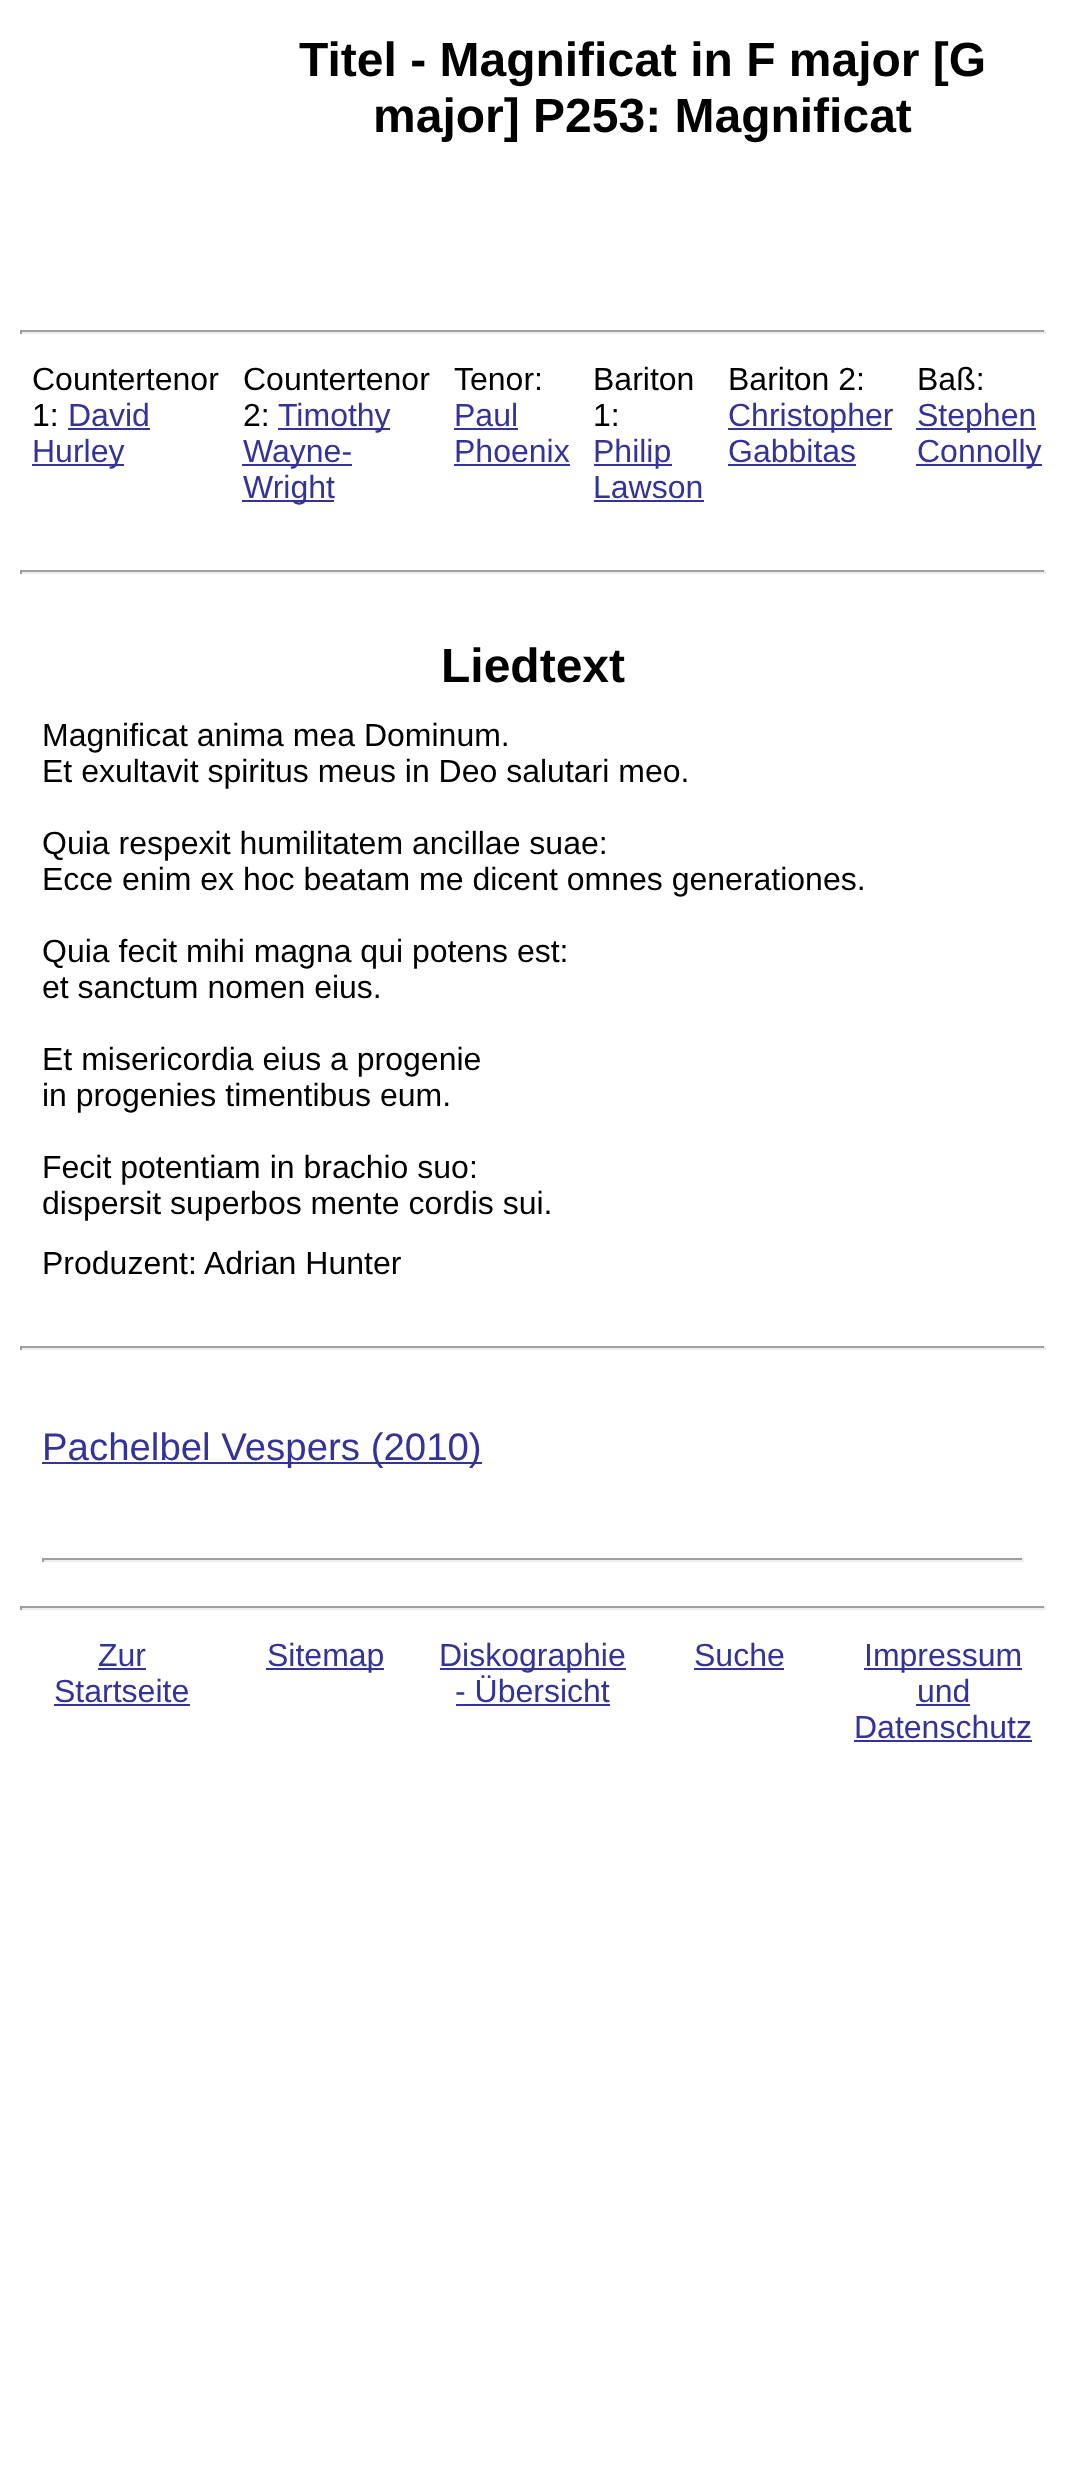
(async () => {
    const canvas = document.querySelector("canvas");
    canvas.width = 1066;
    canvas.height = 2468;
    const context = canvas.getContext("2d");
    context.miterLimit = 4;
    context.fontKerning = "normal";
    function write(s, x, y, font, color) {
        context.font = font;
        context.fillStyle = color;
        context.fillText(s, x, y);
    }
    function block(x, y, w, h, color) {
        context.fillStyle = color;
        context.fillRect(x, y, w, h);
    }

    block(0, 0, 1066, 2468, "rgb(255, 255, 255)");
    write("Titel - Magnificat in F major [G", 299, 76, "bold 48px Liberation Sans", "rgb(0, 0, 0)");
    write("major] P253: Magnificat", 373, 132, "bold 48px Liberation Sans", "rgb(0, 0, 0)");
    block(20, 330, 1026, 2, "rgb(159, 159, 159)");
    block(1044, 330, 2, 4, "rgb(238, 238, 238)");
    block(20, 332, 1026, 2, "rgb(238, 238, 238)");
    block(20, 330, 2, 4, "rgb(159, 159, 159)");
    write("Countertenor", 32, 390, "32px Liberation Sans", "rgb(0, 0, 0)");
    write("1:", 32, 426, "32px Liberation Sans", "rgb(0, 0, 0)");
    write("David", 68, 426, "32px Liberation Sans", "rgb(51, 51, 153)");
    block(68, 428, 82, 2, "rgb(51, 51, 153)");
    block(32, 464, 92, 2, "rgb(51, 51, 153)");
    write("Hurley", 32, 462, "32px Liberation Sans", "rgb(51, 51, 153)");
    write("Countertenor", 243, 390, "32px Liberation Sans", "rgb(0, 0, 0)");
    write("2:", 243, 426, "32px Liberation Sans", "rgb(0, 0, 0)");
    block(278, 428, 112, 2, "rgb(51, 51, 153)");
    write("Timothy", 278, 426, "32px Liberation Sans", "rgb(51, 51, 153)");
    block(242, 464, 110, 2, "rgb(51, 51, 153)");
    write("Wayne-", 243, 462, "32px Liberation Sans", "rgb(51, 51, 153)");
    block(242, 500, 92, 2, "rgb(51, 51, 153)");
    write("Wright", 243, 498, "32px Liberation Sans", "rgb(51, 51, 153)");
    write("Tenor:", 454, 390, "32px Liberation Sans", "rgb(0, 0, 0)");
    write("Paul", 454, 426, "32px Liberation Sans", "rgb(51, 51, 153)");
    block(454, 428, 64, 2, "rgb(51, 51, 153)");
    write("Phoenix", 454, 462, "32px Liberation Sans", "rgb(51, 51, 153)");
    block(454, 464, 116, 2, "rgb(51, 51, 153)");
    write("Bariton", 593, 390, "32px Liberation Sans", "rgb(0, 0, 0)");
    write("1:", 593, 426, "32px Liberation Sans", "rgb(0, 0, 0)");
    block(594, 464, 78, 2, "rgb(51, 51, 153)");
    write("Philip", 593, 462, "32px Liberation Sans", "rgb(51, 51, 153)");
    write("Lawson", 593, 498, "32px Liberation Sans", "rgb(51, 51, 153)");
    block(594, 500, 110, 2, "rgb(51, 51, 153)");
    write("Bariton 2:", 728, 390, "32px Liberation Sans", "rgb(0, 0, 0)");
    block(728, 428, 164, 2, "rgb(51, 51, 153)");
    write("Christopher", 728, 426, "32px Liberation Sans", "rgb(51, 51, 153)");
    write("Gabbitas", 728, 462, "32px Liberation Sans", "rgb(51, 51, 153)");
    block(728, 464, 128, 2, "rgb(51, 51, 153)");
    write("Baß:", 917, 390, "32px Liberation Sans", "rgb(0, 0, 0)");
    block(916, 428, 120, 2, "rgb(51, 51, 153)");
    write("Stephen", 917, 426, "32px Liberation Sans", "rgb(51, 51, 153)");
    block(916, 464, 126, 2, "rgb(51, 51, 153)");
    write("Connolly", 917, 462, "32px Liberation Sans", "rgb(51, 51, 153)");
    block(20, 570, 1026, 2, "rgb(159, 159, 159)");
    block(1044, 570, 2, 4, "rgb(238, 238, 238)");
    block(20, 572, 1026, 2, "rgb(238, 238, 238)");
    block(20, 570, 2, 4, "rgb(159, 159, 159)");
    write("Liedtext", 441, 682, "bold 48px Liberation Sans", "rgb(0, 0, 0)");
    write("Magnificat anima mea Dominum.", 42, 746, "32px Liberation Sans", "rgb(0, 0, 0)");
    write("Et exultavit spiritus meus in Deo salutari meo.", 42, 782, "32px Liberation Sans", "rgb(0, 0, 0)");
    write("Quia respexit humilitatem ancillae suae:", 42, 854, "32px Liberation Sans", "rgb(0, 0, 0)");
    write("Ecce enim ex hoc beatam me dicent omnes generationes.", 42, 890, "32px Liberation Sans", "rgb(0, 0, 0)");
    write("Quia fecit mihi magna qui potens est:", 42, 962, "32px Liberation Sans", "rgb(0, 0, 0)");
    write("et sanctum nomen eius.", 42, 998, "32px Liberation Sans", "rgb(0, 0, 0)");
    write("Et misericordia eius a progenie", 42, 1070, "32px Liberation Sans", "rgb(0, 0, 0)");
    write("in progenies timentibus eum.", 42, 1106, "32px Liberation Sans", "rgb(0, 0, 0)");
    write("Fecit potentiam in brachio suo:", 42, 1178, "32px Liberation Sans", "rgb(0, 0, 0)");
    write("dispersit superbos mente cordis sui.", 42, 1214, "32px Liberation Sans", "rgb(0, 0, 0)");
    write("Produzent: Adrian Hunter", 42, 1274, "32px Liberation Sans", "rgb(0, 0, 0)");
    block(20, 1346, 1026, 2, "rgb(159, 159, 159)");
    block(1044, 1346, 2, 4, "rgb(238, 238, 238)");
    block(20, 1348, 1026, 2, "rgb(238, 238, 238)");
    block(20, 1346, 2, 4, "rgb(159, 159, 159)");
    block(42, 1462, 440, 2, "rgb(51, 51, 153)");
    write("Pachelbel Vespers (2010)", 42, 1460, "38.4px Liberation Sans", "rgb(51, 51, 153)");
    block(42, 1558, 982, 2, "rgb(159, 159, 159)");
    block(1022, 1558, 2, 4, "rgb(238, 238, 238)");
    block(42, 1560, 982, 2, "rgb(238, 238, 238)");
    block(42, 1558, 2, 4, "rgb(159, 159, 159)");
    block(20, 1606, 1026, 2, "rgb(159, 159, 159)");
    block(1044, 1606, 2, 4, "rgb(238, 238, 238)");
    block(20, 1608, 1026, 2, "rgb(238, 238, 238)");
    block(20, 1606, 2, 4, "rgb(159, 159, 159)");
    write("Zur", 98, 1666, "32px Liberation Sans", "rgb(51, 51, 153)");
    block(98, 1668, 48, 2, "rgb(51, 51, 153)");
    write("Startseite", 54, 1702, "32px Liberation Sans", "rgb(51, 51, 153)");
    block(54, 1704, 136, 2, "rgb(51, 51, 153)");
    block(266, 1668, 118, 2, "rgb(51, 51, 153)");
    write("Sitemap", 267, 1666, "32px Liberation Sans", "rgb(51, 51, 153)");
    block(440, 1668, 186, 2, "rgb(51, 51, 153)");
    write("Diskographie", 439, 1666, "32px Liberation Sans", "rgb(51, 51, 153)");
    write("- Übersicht", 455, 1702, "32px Liberation Sans", "rgb(51, 51, 153)");
    block(456, 1704, 154, 2, "rgb(51, 51, 153)");
    write("Suche", 694, 1666, "32px Liberation Sans", "rgb(51, 51, 153)");
    block(694, 1668, 90, 2, "rgb(51, 51, 153)");
    block(864, 1668, 158, 2, "rgb(51, 51, 153)");
    write("Impressum", 864, 1666, "32px Liberation Sans", "rgb(51, 51, 153)");
    write("und", 917, 1702, "32px Liberation Sans", "rgb(51, 51, 153)");
    block(916, 1704, 54, 2, "rgb(51, 51, 153)");
    write("Datenschutz", 854, 1738, "32px Liberation Sans", "rgb(51, 51, 153)");
    block(854, 1740, 178, 2, "rgb(51, 51, 153)");
})();
